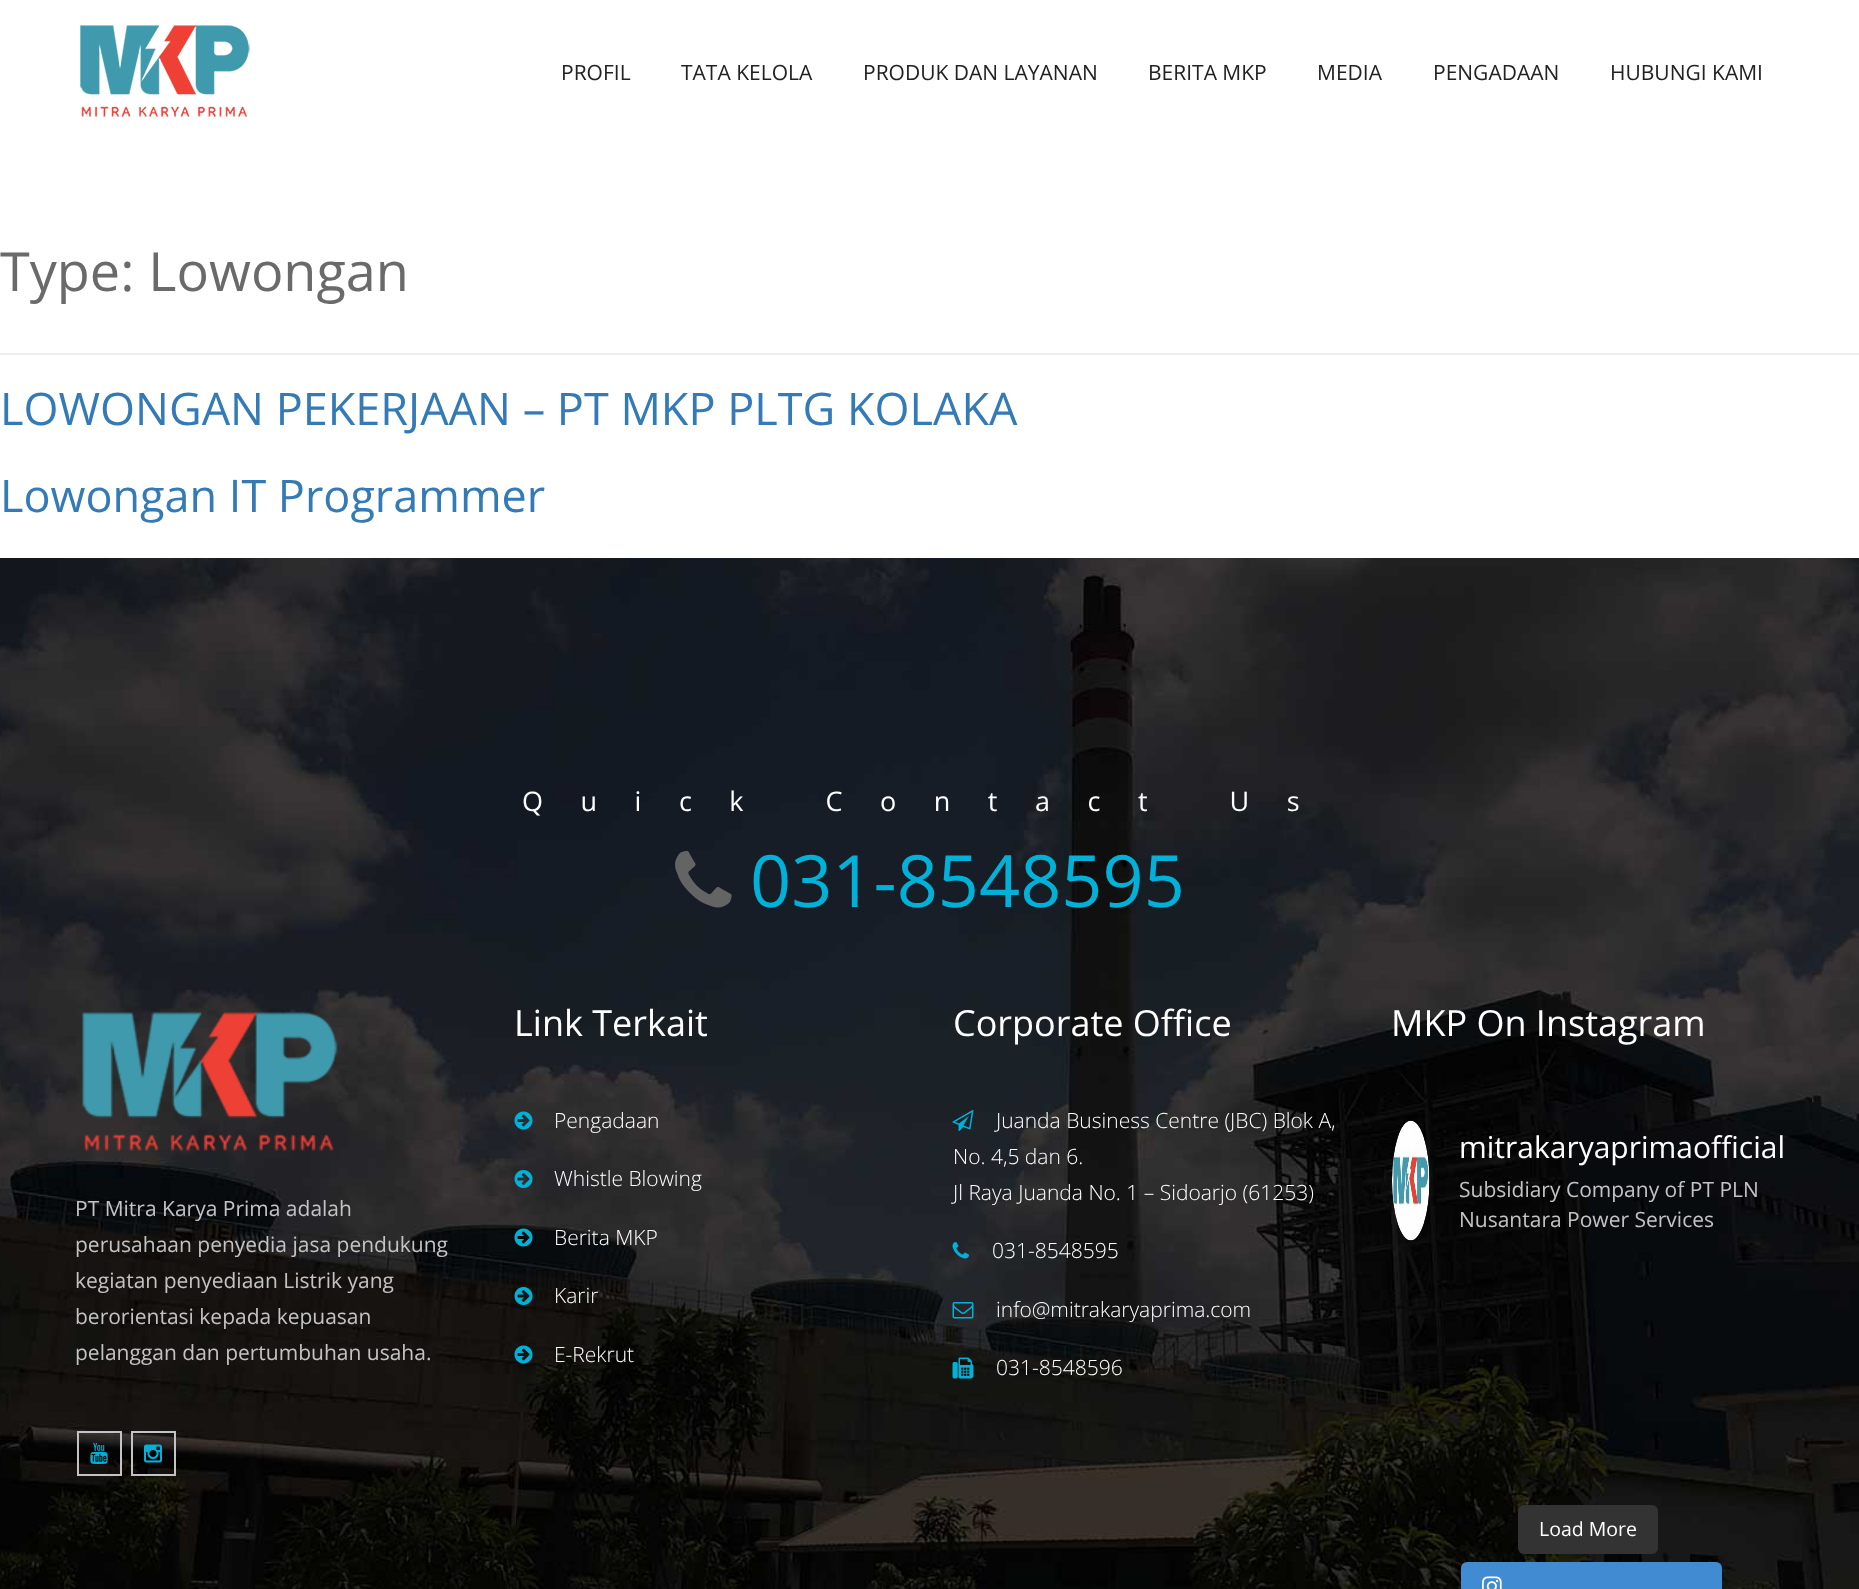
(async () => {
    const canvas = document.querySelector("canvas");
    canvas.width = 1859;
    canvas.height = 1589;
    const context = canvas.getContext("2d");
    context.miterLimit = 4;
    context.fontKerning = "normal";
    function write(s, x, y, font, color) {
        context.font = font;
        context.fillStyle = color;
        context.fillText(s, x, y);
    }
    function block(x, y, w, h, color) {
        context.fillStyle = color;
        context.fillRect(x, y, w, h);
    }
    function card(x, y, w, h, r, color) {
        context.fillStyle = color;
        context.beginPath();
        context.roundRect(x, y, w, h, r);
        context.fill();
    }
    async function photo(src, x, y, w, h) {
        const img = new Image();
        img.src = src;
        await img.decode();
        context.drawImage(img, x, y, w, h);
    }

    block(0, 0, 1859, 1589, "rgb(255, 255, 255)");
    await photo("media/1.png", 80, 25, 170, 92);
    write("PROFIL", 561, 80, "21px Open Sans", "rgb(34, 34, 34)");
    write("TATA KELOLA", 681, 80, "21px Open Sans", "rgb(34, 34, 34)");
    write("PRODUK DAN LAYANAN", 863, 80, "21px Open Sans", "rgb(34, 34, 34)");
    write("BERITA MKP", 1148, 80, "21px Open Sans", "rgb(34, 34, 34)");
    write("MEDIA", 1317, 80, "21px Open Sans", "rgb(34, 34, 34)");
    write("PENGADAAN", 1433, 80, "21px Open Sans", "rgb(34, 34, 34)");
    write("HUBUNGI KAMI", 1610, 80, "21px Open Sans", "rgb(34, 34, 34)");
    block(0, 353, 1859, 2, "rgb(238, 238, 238)");
    write("Type: Lowongan", 0, 291, "54px Open Sans", "rgb(106, 106, 106)");
    write("LOWONGAN PEKERJAAN – PT MKP PLTG KOLAKA", 0, 425, "45px Open Sans", "rgb(51, 122, 183)");
    write("Lowongan IT Programmer", 0, 512, "45px Open Sans", "rgb(51, 122, 183)");
    await photo("media/2.png", 0, 558, 1859, 1031);
    context.letterSpacing = "37.5px";
    write("Quick Contact Us", 522, 811, "27px Open Sans", "rgb(255, 255, 255)");
    await photo("media/3.png", 675, 851, 57, 57);
    context.letterSpacing = "0px";
    write("031-8548595", 750, 907, "72px Open Sans", "rgb(1, 177, 215)");
    await photo("media/4.png", 82, 1012, 256, 139);
    write("PT Mitra Karya Prima adalah", 75, 1216, "21px Open Sans", "rgb(195, 195, 195)");
    write("perusahaan penyedia jasa pendukung", 75, 1252, "21px Open Sans", "rgb(195, 195, 195)");
    write("kegiatan penyediaan Listrik yang", 75, 1288, "21px Open Sans", "rgb(195, 195, 195)");
    write("berorientasi kepada kepuasan", 75, 1324, "21px Open Sans", "rgb(195, 195, 195)");
    write("pelanggan dan pertumbuhan usaha.", 75, 1360, "21px Open Sans", "rgb(195, 195, 195)");
    context.strokeStyle = "rgb(195, 195, 195)";
    context.lineWidth = 2;
    context.strokeRect(78, 1432, 43, 43);
    await photo("media/5.png", 90, 1443, 18, 21);
    context.strokeRect(132, 1432, 43, 43);
    await photo("media/6.png", 144, 1444, 18, 19);
    write("Link Terkait", 514, 1036, "36px Open Sans", "rgb(255, 255, 255)");
    await photo("media/7.png", 514, 1111, 19, 19);
    write("Pengadaan", 554, 1128, "300 21px Open Sans", "rgb(255, 255, 255)");
    await photo("media/8.png", 514, 1170, 19, 18);
    write("Whistle Blowing", 554, 1186, "300 21px Open Sans", "rgb(255, 255, 255)");
    await photo("media/9.png", 514, 1228, 19, 19);
    write("Berita MKP", 554, 1245, "300 21px Open Sans", "rgb(255, 255, 255)");
    await photo("media/10.png", 514, 1287, 19, 18);
    write("Karir", 554, 1303, "300 21px Open Sans", "rgb(255, 255, 255)");
    await photo("media/11.png", 514, 1345, 19, 19);
    write("E-Rekrut", 554, 1362, "300 21px Open Sans", "rgb(255, 255, 255)");
    write("Corporate Office", 953, 1036, "36px Open Sans", "rgb(255, 255, 255)");
    await photo("media/12.png", 952, 1110, 22, 21);
    write("Juanda Business Centre (JBC) Blok A,", 996, 1128, "300 21px Open Sans", "rgb(255, 255, 255)");
    write("No. 4,5 dan 6.", 953, 1164, "300 21px Open Sans", "rgb(255, 255, 255)");
    write("Jl Raya Juanda No. 1 – Sidoarjo (61253)", 953, 1200, "300 21px Open Sans", "rgb(255, 255, 255)");
    await photo("media/13.png", 952, 1242, 17, 17);
    write("031-8548595", 992, 1258, "300 21px Open Sans", "rgb(255, 255, 255)");
    await photo("media/14.png", 952, 1302, 22, 17);
    write("info@mitrakaryaprima.com", 996, 1317, "300 21px Open Sans", "rgb(255, 255, 255)");
    await photo("media/15.png", 952, 1357, 22, 22);
    write("031-8548596", 996, 1375, "300 21px Open Sans", "rgb(255, 255, 255)");
    write("MKP On Instagram", 1391, 1036, "36px Open Sans", "rgb(255, 255, 255)");
    await photo("media/16.png", 1392, 1120, 38, 121);
    write("mitrakaryaprimaofficial", 1459, 1158, "30px Open Sans", "rgb(255, 255, 255)");
    write("Subsidiary Company of PT PLN", 1459, 1197, "21px Open Sans", "rgb(195, 195, 195)");
    write("Nusantara Power Services", 1459, 1227, "21px Open Sans", "rgb(195, 195, 195)");
    card(1518, 1505, 140, 49, 6, "rgb(51, 51, 51)");
    write("Load More", 1539, 1536, "19.5px Open Sans", "rgb(255, 255, 255)");
    card(1461, 1562, 261, 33, 6, "rgb(64, 139, 209)");
    await photo("media/17.png", 1482, 1576, 20, 13);
})();
